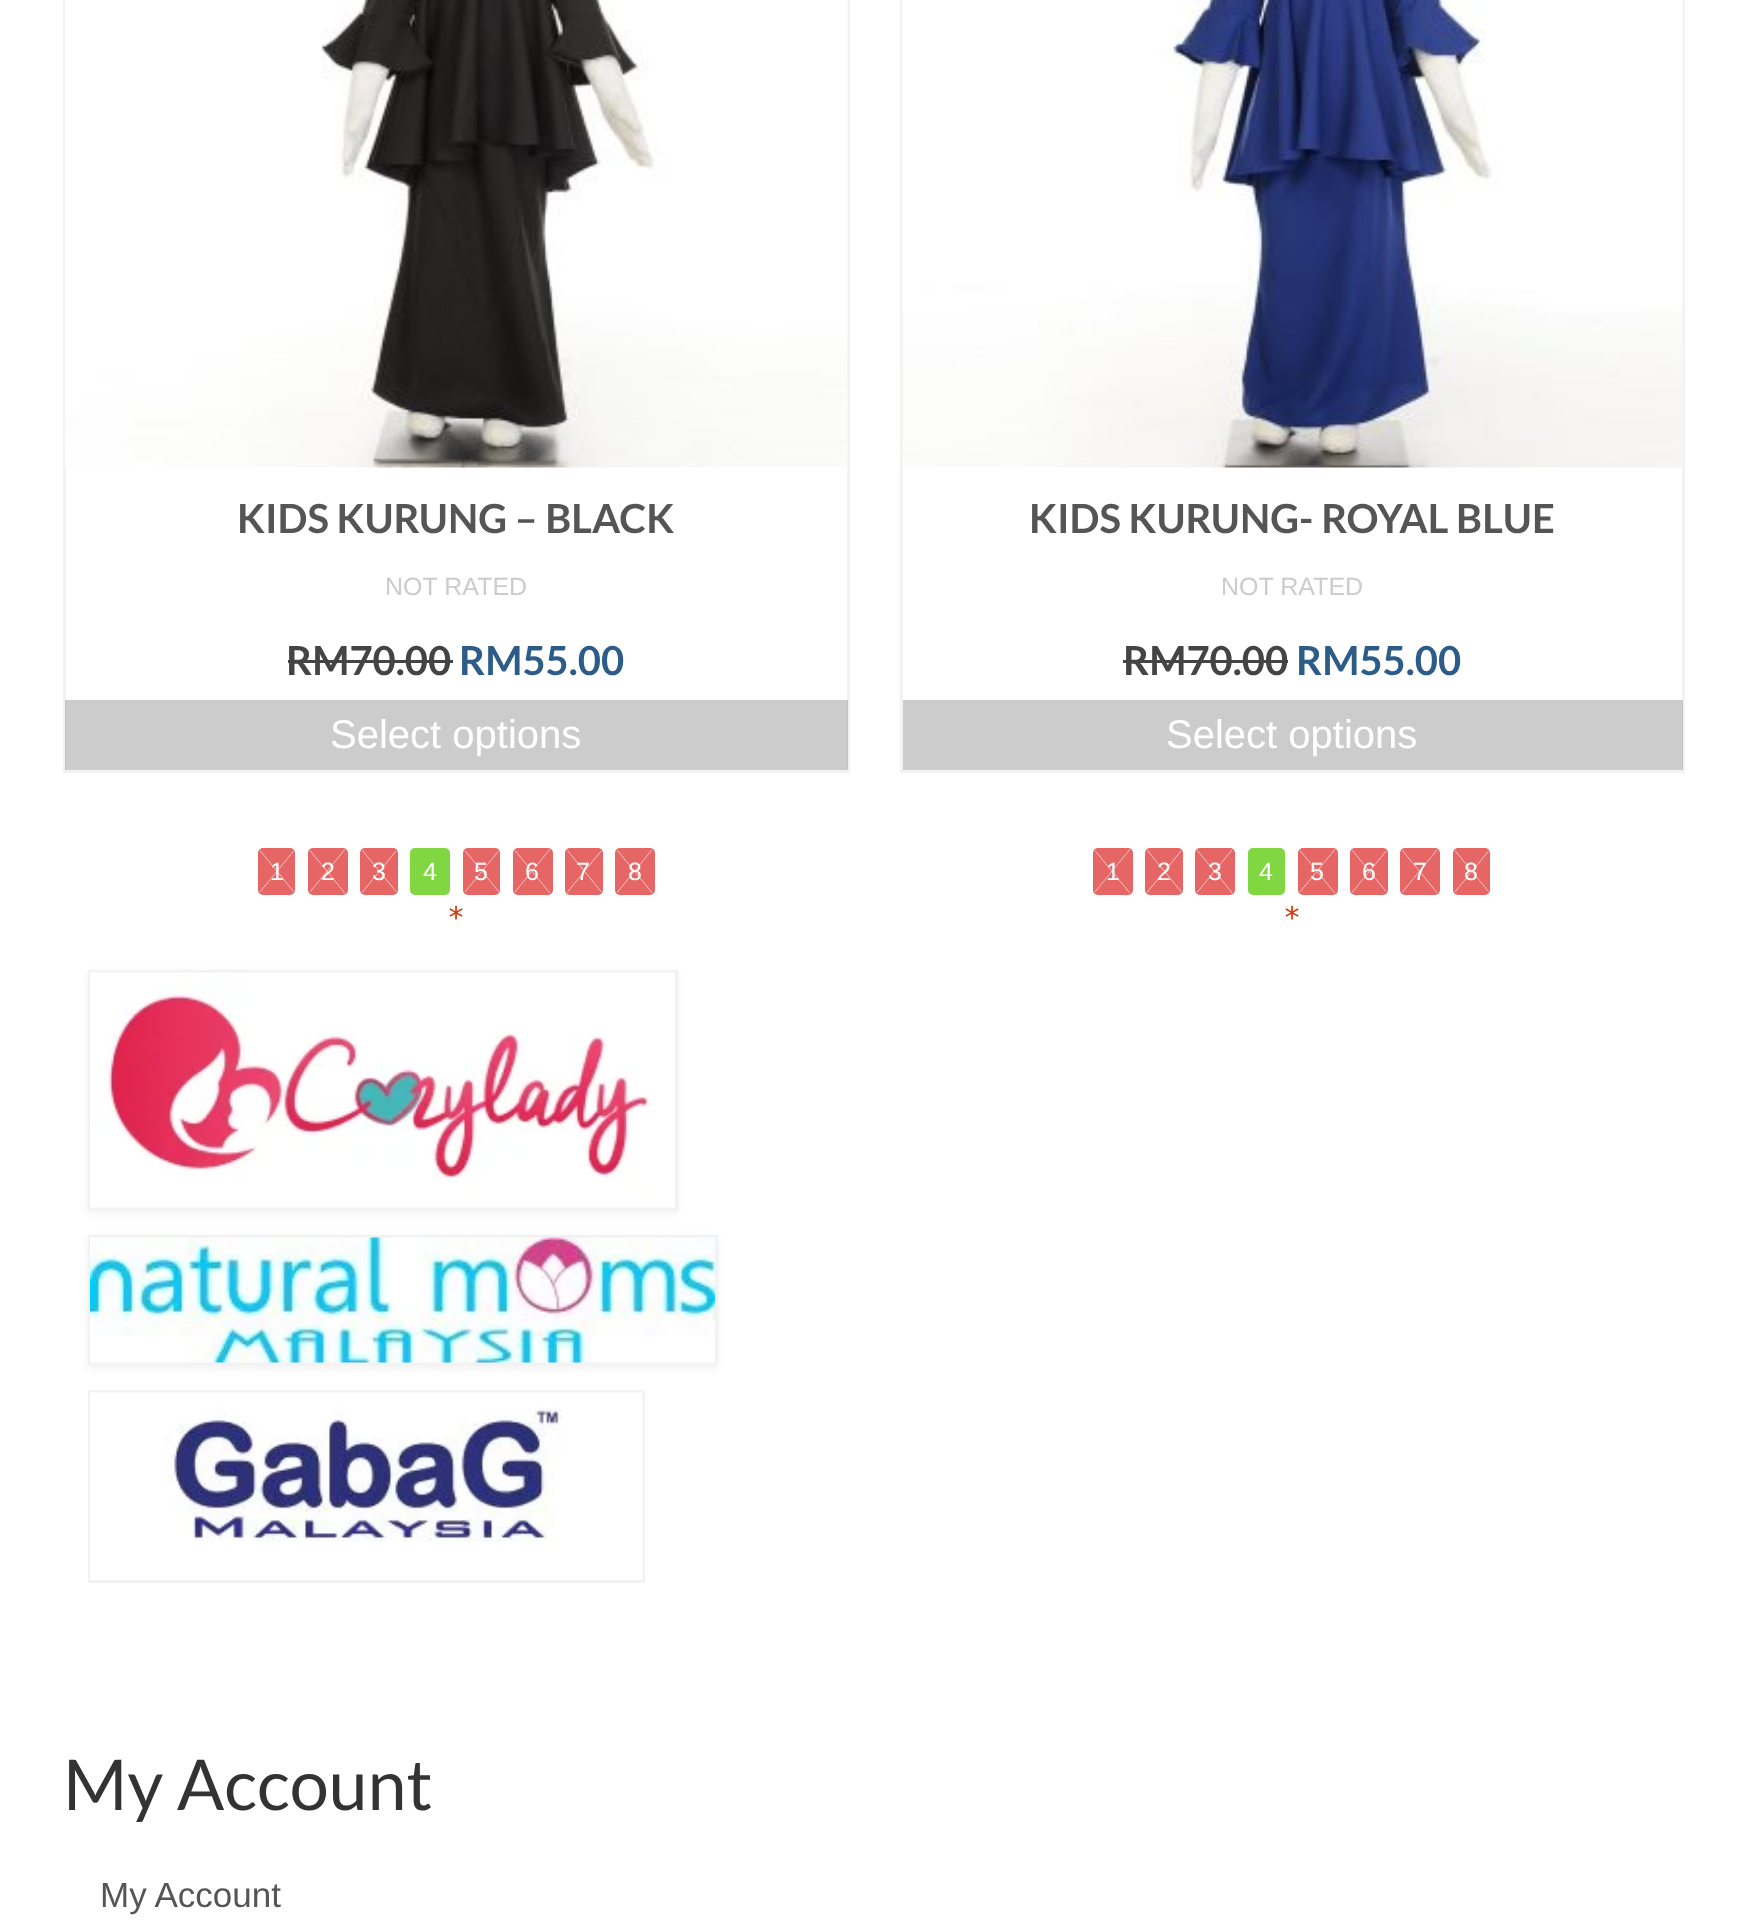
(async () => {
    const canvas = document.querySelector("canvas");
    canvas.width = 1746;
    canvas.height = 1924;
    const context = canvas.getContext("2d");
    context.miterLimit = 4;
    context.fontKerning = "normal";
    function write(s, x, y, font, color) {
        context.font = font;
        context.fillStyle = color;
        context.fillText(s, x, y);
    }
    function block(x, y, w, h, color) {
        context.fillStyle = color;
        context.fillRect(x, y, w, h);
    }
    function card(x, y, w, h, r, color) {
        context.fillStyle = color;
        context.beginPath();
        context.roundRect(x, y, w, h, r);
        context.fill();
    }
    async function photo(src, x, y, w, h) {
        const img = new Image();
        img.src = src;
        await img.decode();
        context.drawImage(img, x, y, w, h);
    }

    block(0, 0, 1746, 1924, "rgb(255, 255, 255)");
    context.strokeStyle = "rgb(242, 242, 242)";
    context.lineWidth = 3;
    context.strokeRect(64.5, -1.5, 784, 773);
    await photo("media/1.png", 65, 0, 783, 468);
    write("KIDS KURUNG – BLACK", 237, 533, "bold 40px Lato", "rgb(85, 85, 85)");
    write("NOT RATED", 385, 595, "25px Liberation Sans", "rgb(204, 204, 204)");
    write("RM70.00", 286, 675, "bold 40px Lato", "rgb(68, 68, 68)");
    block(288, 660, 165, 3, "rgb(68, 68, 68)");
    write("RM55.00", 459, 675, "bold 40px Lato", "rgb(45, 92, 136)");
    block(65, 700, 783, 70, "rgba(0, 0, 0, 0.2)");
    write("Select options", 330, 748, "40px Liberation Sans", "rgb(255, 255, 255)");
    card(258, 848, 37, 47, 5, "rgb(230, 102, 102)");
    write("1", 270, 880, "25px Liberation Sans", "rgb(255, 255, 255)");
    await photo("media/2.png", 259, 850, 35, 43);
    card(308, 848, 40, 47, 5, "rgb(230, 102, 102)");
    write("2", 321, 880, "25px Liberation Sans", "rgb(255, 255, 255)");
    await photo("media/3.png", 309, 849, 36, 45);
    card(360, 848, 38, 47, 5, "rgb(230, 102, 102)");
    write("3", 372, 880, "25px Liberation Sans", "rgb(255, 255, 255)");
    await photo("media/4.png", 362, 850, 35, 43);
    card(410, 848, 40, 47, 5, "rgb(129, 215, 66)");
    write("4", 423, 880, "25px Liberation Sans", "rgb(255, 255, 255)");
    card(463, 848, 37, 47, 5, "rgb(230, 102, 102)");
    write("5", 474, 880, "25px Liberation Sans", "rgb(255, 255, 255)");
    await photo("media/5.png", 464, 850, 35, 43);
    card(513, 848, 40, 47, 5, "rgb(230, 102, 102)");
    write("6", 525, 880, "25px Liberation Sans", "rgb(255, 255, 255)");
    await photo("media/6.png", 514, 849, 36, 45);
    card(565, 848, 38, 47, 5, "rgb(230, 102, 102)");
    write("7", 576, 880, "25px Liberation Sans", "rgb(255, 255, 255)");
    await photo("media/7.png", 567, 850, 35, 43);
    card(615, 848, 40, 47, 5, "rgb(230, 102, 102)");
    write("8", 628, 880, "25px Liberation Sans", "rgb(255, 255, 255)");
    await photo("media/8.png", 617, 849, 36, 44);
    write("*", 447, 928, "30px DejaVu Sans Mono", "rgb(213, 54, 9)");
    context.strokeRect(901.5, -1.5, 782, 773);
    await photo("media/9.png", 902, 0, 781, 468);
    write("KIDS KURUNG- ROYAL BLUE", 1029, 533, "bold 40px Lato", "rgb(85, 85, 85)");
    write("NOT RATED", 1221, 595, "25px Liberation Sans", "rgb(204, 204, 204)");
    write("RM70.00", 1123, 675, "bold 40px Lato", "rgb(68, 68, 68)");
    block(1123, 660, 165, 3, "rgb(68, 68, 68)");
    write("RM55.00", 1296, 675, "bold 40px Lato", "rgb(45, 92, 136)");
    block(903, 700, 780, 70, "rgba(0, 0, 0, 0.2)");
    write("Select options", 1166, 748, "40px Liberation Sans", "rgb(255, 255, 255)");
    card(1093, 848, 40, 47, 5, "rgb(230, 102, 102)");
    write("1", 1106, 880, "25px Liberation Sans", "rgb(255, 255, 255)");
    await photo("media/10.png", 1094, 849, 36, 45);
    card(1145, 848, 38, 47, 5, "rgb(230, 102, 102)");
    write("2", 1157, 880, "25px Liberation Sans", "rgb(255, 255, 255)");
    await photo("media/11.png", 1147, 850, 35, 43);
    card(1195, 848, 40, 47, 5, "rgb(230, 102, 102)");
    write("3", 1208, 880, "25px Liberation Sans", "rgb(255, 255, 255)");
    await photo("media/12.png", 1197, 849, 36, 44);
    card(1248, 848, 37, 47, 5, "rgb(129, 215, 66)");
    write("4", 1259, 880, "25px Liberation Sans", "rgb(255, 255, 255)");
    card(1298, 848, 40, 47, 5, "rgb(230, 102, 102)");
    write("5", 1310, 880, "25px Liberation Sans", "rgb(255, 255, 255)");
    await photo("media/13.png", 1299, 849, 36, 45);
    card(1350, 848, 38, 47, 5, "rgb(230, 102, 102)");
    write("6", 1362, 880, "25px Liberation Sans", "rgb(255, 255, 255)");
    await photo("media/14.png", 1352, 850, 35, 43);
    card(1400, 848, 40, 47, 5, "rgb(230, 102, 102)");
    write("7", 1413, 880, "25px Liberation Sans", "rgb(255, 255, 255)");
    await photo("media/15.png", 1402, 849, 36, 44);
    card(1453, 848, 37, 47, 5, "rgb(230, 102, 102)");
    write("8", 1464, 880, "25px Liberation Sans", "rgb(255, 255, 255)");
    await photo("media/16.png", 1454, 850, 35, 43);
    write("*", 1283, 928, "30px DejaVu Sans Mono", "rgb(213, 54, 9)");
    context.save();
    context.beginPath();
    context.moveTo(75, 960);
    context.lineTo(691, 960);
    context.lineTo(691, 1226);
    context.lineTo(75, 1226);
    context.closePath();
    context.moveTo(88, 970);
    context.lineTo(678, 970);
    context.lineTo(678, 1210);
    context.lineTo(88, 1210);
    context.closePath();
    context.clip("evenodd");
    context.fillStyle = "rgba(0, 0, 0, 0.06)";
    context.filter = "blur(4px)";
    context.beginPath();
    context.rect(88, 973, 590, 240);
    context.fill();
    context.filter = "none";
    context.restore();
    context.strokeStyle = "rgba(0, 0, 0, 0.05)";
    context.strokeRect(89.5, 971.5, 587, 237);
    await photo("media/17.png", 90, 972, 585, 236);
    context.save();
    context.beginPath();
    context.moveTo(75, 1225);
    context.lineTo(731, 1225);
    context.lineTo(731, 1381);
    context.lineTo(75, 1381);
    context.closePath();
    context.moveTo(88, 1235);
    context.lineTo(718, 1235);
    context.lineTo(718, 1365);
    context.lineTo(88, 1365);
    context.closePath();
    context.clip("evenodd");
    context.fillStyle = "rgba(0, 0, 0, 0.06)";
    context.filter = "blur(4px)";
    context.beginPath();
    context.rect(88, 1238, 630, 130);
    context.fill();
    context.filter = "none";
    context.restore();
    context.strokeRect(89.5, 1236.5, 627, 127);
    await photo("media/18.png", 90, 1237, 625, 126);
    context.strokeRect(89.5, 1391.5, 554, 190);
    await photo("media/19.png", 90, 1392, 553, 188);
    write("My Account", 63, 1810, "70px Lato", "rgb(51, 51, 51)");
    write("My Account", 100, 1907, "35px Liberation Sans", "rgb(85, 85, 85)");
})();
